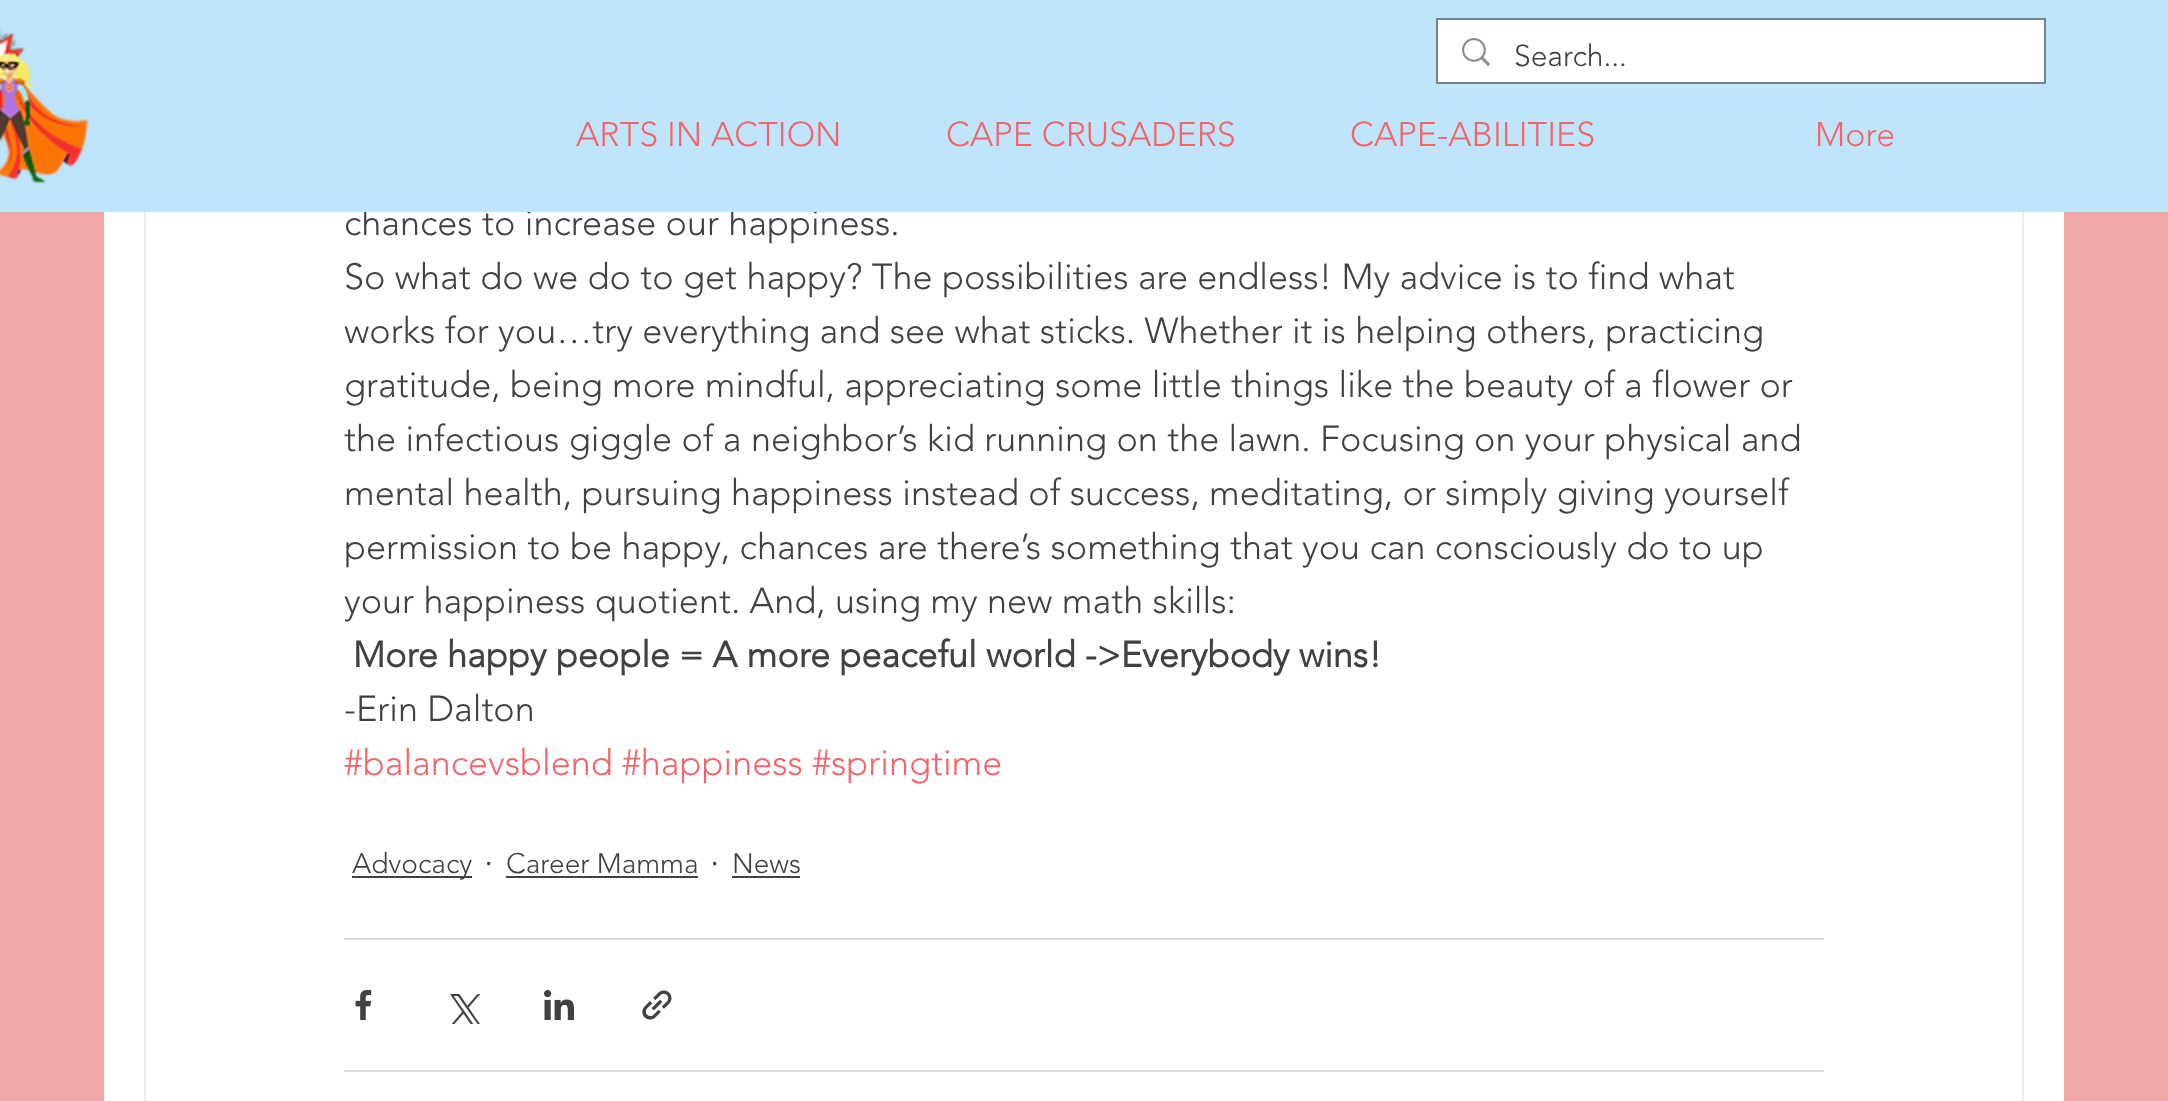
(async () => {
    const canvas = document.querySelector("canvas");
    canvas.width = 2168;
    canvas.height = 1101;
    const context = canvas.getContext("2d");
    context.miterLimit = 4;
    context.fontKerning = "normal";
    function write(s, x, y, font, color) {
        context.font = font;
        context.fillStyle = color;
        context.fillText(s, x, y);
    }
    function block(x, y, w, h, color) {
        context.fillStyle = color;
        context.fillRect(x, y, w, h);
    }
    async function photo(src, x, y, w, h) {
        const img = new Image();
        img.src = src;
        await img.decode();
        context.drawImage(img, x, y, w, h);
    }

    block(0, 0, 2168, 1101, "rgb(242, 167, 167)");
    block(104, 212, 1960, 889, "rgb(255, 255, 255)");
    context.strokeStyle = "rgb(238, 236, 236)";
    context.lineWidth = 2;
    context.strokeRect(145, -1, 1878, 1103);
    write("chances to increase our happiness.", 344, 235, "300 36px 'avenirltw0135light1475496'", "rgb(65, 65, 65)");
    block(0, 0, 2168, 212, "rgb(190, 229, 251)");
    await photo("media/1.png", 0, 26, 89, 158);
    context.strokeStyle = "rgb(115, 131, 139)";
    context.strokeRect(1437, 19, 608, 64);
    block(1438, 20, 606, 62, "rgb(255, 255, 255)");
    await photo("media/2.png", 1462, 38, 28, 28);
    write("Search...", 1514, 66, "300 30px 'avenirltw0135light1475496'", "rgb(65, 65, 65)");
    write("ARTS IN ACTION", 576, 146, "300 34px 'avenirltw0135light1475496'", "rgb(244, 101, 105)");
    write("CAPE CRUSADERS", 946, 146, "300 34px 'avenirltw0135light1475496'", "rgb(244, 101, 105)");
    write("CAPE-ABILITIES", 1350, 146, "300 34px 'avenirltw0135light1475496'", "rgb(244, 101, 105)");
    write("More", 1815, 146, "300 34px 'avenirltw0135light1475496'", "rgb(244, 101, 105)");
    write("So what do we do to get happy? The possibilities are endless! My advice is to find what", 344, 289, "300 36px 'avenirltw0135light1475496'", "rgb(65, 65, 65)");
    write("works for you…try everything and see what sticks. Whether it is helping others, practicing", 344, 343, "300 36px 'avenirltw0135light1475496'", "rgb(65, 65, 65)");
    write("gratitude, being more mindful, appreciating some little things like the beauty of a flower or", 344, 397, "300 36px 'avenirltw0135light1475496'", "rgb(65, 65, 65)");
    write("the infectious giggle of a neighbor’s kid running on the lawn. Focusing on your physical and", 344, 451, "300 36px 'avenirltw0135light1475496'", "rgb(65, 65, 65)");
    write("mental health, pursuing happiness instead of success, meditating, or simply giving yourself", 344, 505, "300 36px 'avenirltw0135light1475496'", "rgb(65, 65, 65)");
    write("permission to be happy, chances are there’s something that you can consciously do to up", 344, 559, "300 36px 'avenirltw0135light1475496'", "rgb(65, 65, 65)");
    write("your happiness quotient. And, using my new math skills:", 344, 613, "300 36px 'avenirltw0135light1475496'", "rgb(65, 65, 65)");
    write("More happy people = A more peaceful world ->Everybody wins!", 353, 667, "bold 36px 'avenirltw0135light1475496'", "rgb(65, 65, 65)");
    write("-Erin Dalton", 344, 721, "300 36px 'avenirltw0135light1475496'", "rgb(65, 65, 65)");
    write("#balancevsblend #happiness #springtime", 344, 775, "300 36px 'avenirltw0135light1475496'", "rgb(244, 101, 105)");
    block(352, 876, 120, 2, "rgb(65, 65, 65)");
    write("Advocacy", 352, 873, "300 28px 'avenirltw0135light1475496'", "rgb(65, 65, 65)");
    write("·", 484, 875, "300 36px 'avenirltw0135light1475496'", "rgb(65, 65, 65)");
    write("Career Mamma", 506, 873, "300 28px 'avenirltw0135light1475496'", "rgb(65, 65, 65)");
    block(506, 876, 192, 2, "rgb(65, 65, 65)");
    write("·", 710, 875, "300 36px 'avenirltw0135light1475496'", "rgb(65, 65, 65)");
    write("News", 732, 873, "300 28px 'avenirltw0135light1475496'", "rgb(65, 65, 65)");
    block(732, 876, 68, 2, "rgb(65, 65, 65)");
    block(344, 938, 1480, 2, "rgb(217, 217, 217)");
    await photo("media/3.png", 355, 990, 17, 30);
    await photo("media/4.png", 450, 994, 30, 30);
    await photo("media/5.png", 544, 990, 30, 30);
    await photo("media/6.png", 642, 990, 30, 30);
    block(344, 1070, 1480, 2, "rgb(217, 217, 217)");
})();
